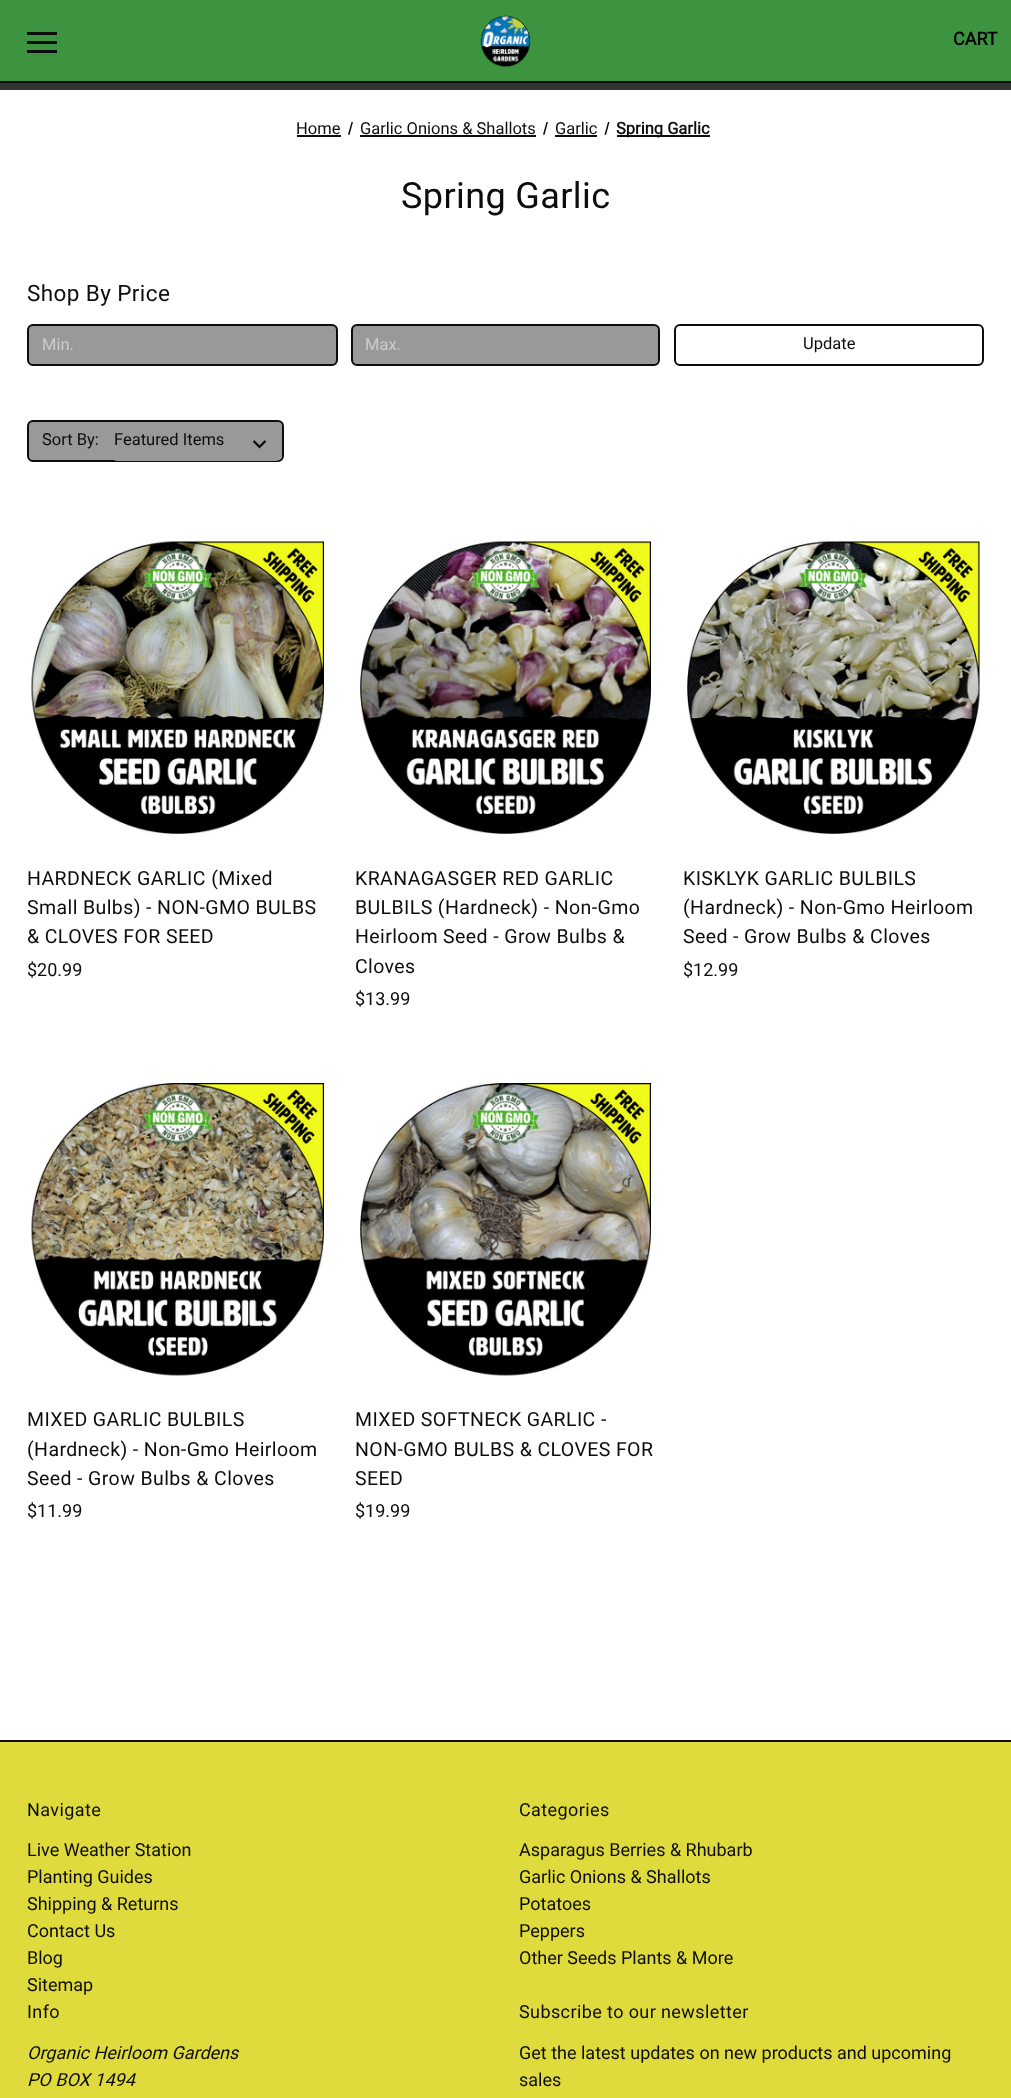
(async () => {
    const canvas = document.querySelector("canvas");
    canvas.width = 1011;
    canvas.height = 2098;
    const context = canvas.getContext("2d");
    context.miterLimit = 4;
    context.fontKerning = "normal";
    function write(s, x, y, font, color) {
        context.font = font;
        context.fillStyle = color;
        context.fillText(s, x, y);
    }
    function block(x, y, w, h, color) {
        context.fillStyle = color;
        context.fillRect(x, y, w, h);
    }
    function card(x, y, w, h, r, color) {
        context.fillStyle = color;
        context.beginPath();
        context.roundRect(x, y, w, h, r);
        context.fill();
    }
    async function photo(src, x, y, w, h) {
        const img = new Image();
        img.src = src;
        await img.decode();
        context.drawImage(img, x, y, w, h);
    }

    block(0, 0, 1011, 2098, "rgb(255, 255, 255)");
    block(0, 0, 1011, 81, "rgb(60, 148, 64)");
    block(0, 81, 1011, 2, "rgb(13, 13, 13)");
    block(27, 41, 30, 3, "rgb(13, 13, 13)");
    block(27, 32, 30, 3, "rgb(13, 13, 13)");
    block(27, 50, 30, 3, "rgb(13, 13, 13)");
    await photo("media/1.png", 480, 15, 51, 52);
    write("CART", 953, 45, "bold 18px Roboto", "rgb(0, 0, 0)");
    block(0, 83, 1011, 7, "rgb(51, 51, 51)");
    write("Home", 296, 134, "16.5px Roboto", "rgb(13, 13, 13)");
    block(297, 135, 44, 2, "rgb(13, 13, 13)");
    context.beginPath();
    context.moveTo(351.5, 122);
    context.lineTo(353, 122);
    context.lineTo(349.5, 135);
    context.lineTo(348, 134.5);
    context.closePath();
    context.fill();
    write("Garlic Onions & Shallots", 360, 134, "16.5px Roboto", "rgb(13, 13, 13)");
    block(360, 135, 176, 2, "rgb(13, 13, 13)");
    context.beginPath();
    context.moveTo(546.5, 122);
    context.lineTo(548, 122);
    context.lineTo(544.5, 135);
    context.lineTo(543, 134.5);
    context.closePath();
    context.fill();
    write("Garlic", 555, 134, "16.5px Roboto", "rgb(13, 13, 13)");
    block(555, 135, 42, 2, "rgb(13, 13, 13)");
    context.beginPath();
    context.moveTo(608, 122);
    context.lineTo(609.5, 122);
    context.lineTo(606, 135);
    context.lineTo(604.5, 134.5);
    context.closePath();
    context.fill();
    block(617, 135, 93, 2, "rgb(13, 13, 13)");
    write("Spring Garlic", 616, 134, "bold 16.5px Roboto", "rgb(13, 13, 13)");
    context.letterSpacing = "0.4px";
    write("Spring Garlic", 401, 208, "36px Roboto", "rgb(13, 13, 13)");
    write("Shop By Price", 27, 301, "22.5px Roboto", "rgb(13, 13, 13)");
    context.fillStyle = "rgb(153, 153, 153)";
    context.beginPath();
    context.roundRect(28, 325, 309, 40, 5);
    context.fill();
    context.strokeStyle = "rgb(13, 13, 13)";
    context.lineWidth = 2;
    context.stroke();
    context.letterSpacing = "0px";
    write("Min.", 42, 350, "16.5px Roboto", "rgb(204, 204, 204)");
    context.fillStyle = "rgb(153, 153, 153)";
    context.beginPath();
    context.roundRect(352, 325, 307, 40, 5);
    context.fill();
    context.stroke();
    write("Max.", 365, 350, "16.5px Roboto", "rgb(204, 204, 204)");
    context.beginPath();
    context.roundRect(675, 325, 308, 40, 5);
    context.stroke();
    write("Update", 803, 349, "16.5px Roboto", "rgb(13, 13, 13)");
    context.fillStyle = "rgb(153, 153, 153)";
    context.beginPath();
    context.roundRect(28, 421, 255, 40, 5);
    context.fill();
    context.stroke();
    write("Sort By:", 42, 445, "16.5px Roboto", "rgb(13, 13, 13)");
    card(111, 422, 171, 39, 6, "rgb(153, 153, 153)");
    await photo("media/2.png", 252, 440, 15, 9);
    write("Featured Items", 114, 445, "16.5px Roboto", "rgb(13, 13, 13)");
    await photo("media/3.png", 31, 541, 293, 293);
    context.letterSpacing = "0.4px";
    write("HARDNECK GARLIC (Mixed", 27, 885, "19.5px Roboto", "rgb(13, 13, 13)");
    write("Small Bulbs) - NON-GMO BULBS", 27, 914, "19.5px Roboto", "rgb(13, 13, 13)");
    write("& CLOVES FOR SEED", 27, 943, "19.5px Roboto", "rgb(13, 13, 13)");
    context.letterSpacing = "0px";
    write("$20.99", 27, 976, "18px Roboto", "rgb(13, 13, 13)");
    await photo("media/4.png", 360, 541, 291, 293);
    context.letterSpacing = "0.4px";
    write("KRANAGASGER RED GARLIC", 355, 885, "19.5px Roboto", "rgb(13, 13, 13)");
    write("BULBILS (Hardneck) - Non-Gmo", 355, 914, "19.5px Roboto", "rgb(13, 13, 13)");
    write("Heirloom Seed - Grow Bulbs &", 355, 943, "19.5px Roboto", "rgb(13, 13, 13)");
    write("Cloves", 355, 973, "19.5px Roboto", "rgb(13, 13, 13)");
    context.letterSpacing = "0px";
    write("$13.99", 355, 1005, "18px Roboto", "rgb(13, 13, 13)");
    await photo("media/5.png", 687, 541, 293, 293);
    context.letterSpacing = "0.4px";
    write("KISKLYK GARLIC BULBILS", 683, 885, "19.5px Roboto", "rgb(13, 13, 13)");
    write("(Hardneck) - Non-Gmo Heirloom", 683, 914, "19.5px Roboto", "rgb(13, 13, 13)");
    write("Seed - Grow Bulbs & Cloves", 683, 943, "19.5px Roboto", "rgb(13, 13, 13)");
    context.letterSpacing = "0px";
    write("$12.99", 683, 976, "18px Roboto", "rgb(13, 13, 13)");
    await photo("media/6.png", 31, 1083, 293, 293);
    context.letterSpacing = "0.4px";
    write("MIXED GARLIC BULBILS", 27, 1426, "19.5px Roboto", "rgb(13, 13, 13)");
    write("(Hardneck) - Non-Gmo Heirloom", 27, 1456, "19.5px Roboto", "rgb(13, 13, 13)");
    write("Seed - Grow Bulbs & Cloves", 27, 1485, "19.5px Roboto", "rgb(13, 13, 13)");
    context.letterSpacing = "0px";
    write("$11.99", 27, 1517, "18px Roboto", "rgb(13, 13, 13)");
    await photo("media/7.png", 360, 1083, 291, 293);
    context.letterSpacing = "0.4px";
    write("MIXED SOFTNECK GARLIC -", 355, 1426, "19.5px Roboto", "rgb(13, 13, 13)");
    write("NON-GMO BULBS & CLOVES FOR", 355, 1456, "19.5px Roboto", "rgb(13, 13, 13)");
    write("SEED", 355, 1485, "19.5px Roboto", "rgb(13, 13, 13)");
    context.letterSpacing = "0px";
    write("$19.99", 355, 1517, "18px Roboto", "rgb(13, 13, 13)");
    block(0, 1742, 1011, 356, "rgb(224, 219, 60)");
    block(0, 1740, 1011, 2, "rgb(13, 13, 13)");
    context.letterSpacing = "0.4px";
    write("Navigate", 27, 1816, "18px Roboto", "rgb(13, 13, 13)");
    context.letterSpacing = "0px";
    write("Live Weather Station", 27, 1856, "18px Roboto", "rgb(13, 13, 13)");
    write("Planting Guides", 27, 1883, "18px Roboto", "rgb(13, 13, 13)");
    write("Shipping & Returns", 27, 1910, "18px Roboto", "rgb(13, 13, 13)");
    write("Contact Us", 27, 1937, "18px Roboto", "rgb(13, 13, 13)");
    write("Blog", 27, 1964, "18px Roboto", "rgb(13, 13, 13)");
    write("Sitemap", 27, 1991, "18px Roboto", "rgb(13, 13, 13)");
    context.letterSpacing = "0.4px";
    write("Categories", 519, 1816, "18px Roboto", "rgb(13, 13, 13)");
    context.letterSpacing = "0px";
    write("Asparagus Berries & Rhubarb", 519, 1856, "18px Roboto", "rgb(13, 13, 13)");
    write("Garlic Onions & Shallots", 519, 1883, "18px Roboto", "rgb(13, 13, 13)");
    write("Potatoes", 519, 1910, "18px Roboto", "rgb(13, 13, 13)");
    write("Peppers", 519, 1937, "18px Roboto", "rgb(13, 13, 13)");
    write("Other Seeds Plants & More", 519, 1964, "18px Roboto", "rgb(13, 13, 13)");
    context.letterSpacing = "0.4px";
    write("Info", 27, 2018, "18px Roboto", "rgb(13, 13, 13)");
    context.letterSpacing = "0px";
    write("Organic Heirloom Gardens", 27, 2059, "italic 18px Roboto", "rgb(13, 13, 13)");
    write("PO BOX 1494", 27, 2086, "italic 18px Roboto", "rgb(13, 13, 13)");
    context.letterSpacing = "0.4px";
    write("Subscribe to our newsletter", 519, 2018, "18px Roboto", "rgb(13, 13, 13)");
    context.letterSpacing = "0px";
    write("Get the latest updates on new products and upcoming", 519, 2059, "18px Roboto", "rgb(13, 13, 13)");
    write("sales", 519, 2086, "18px Roboto", "rgb(13, 13, 13)");
})();
